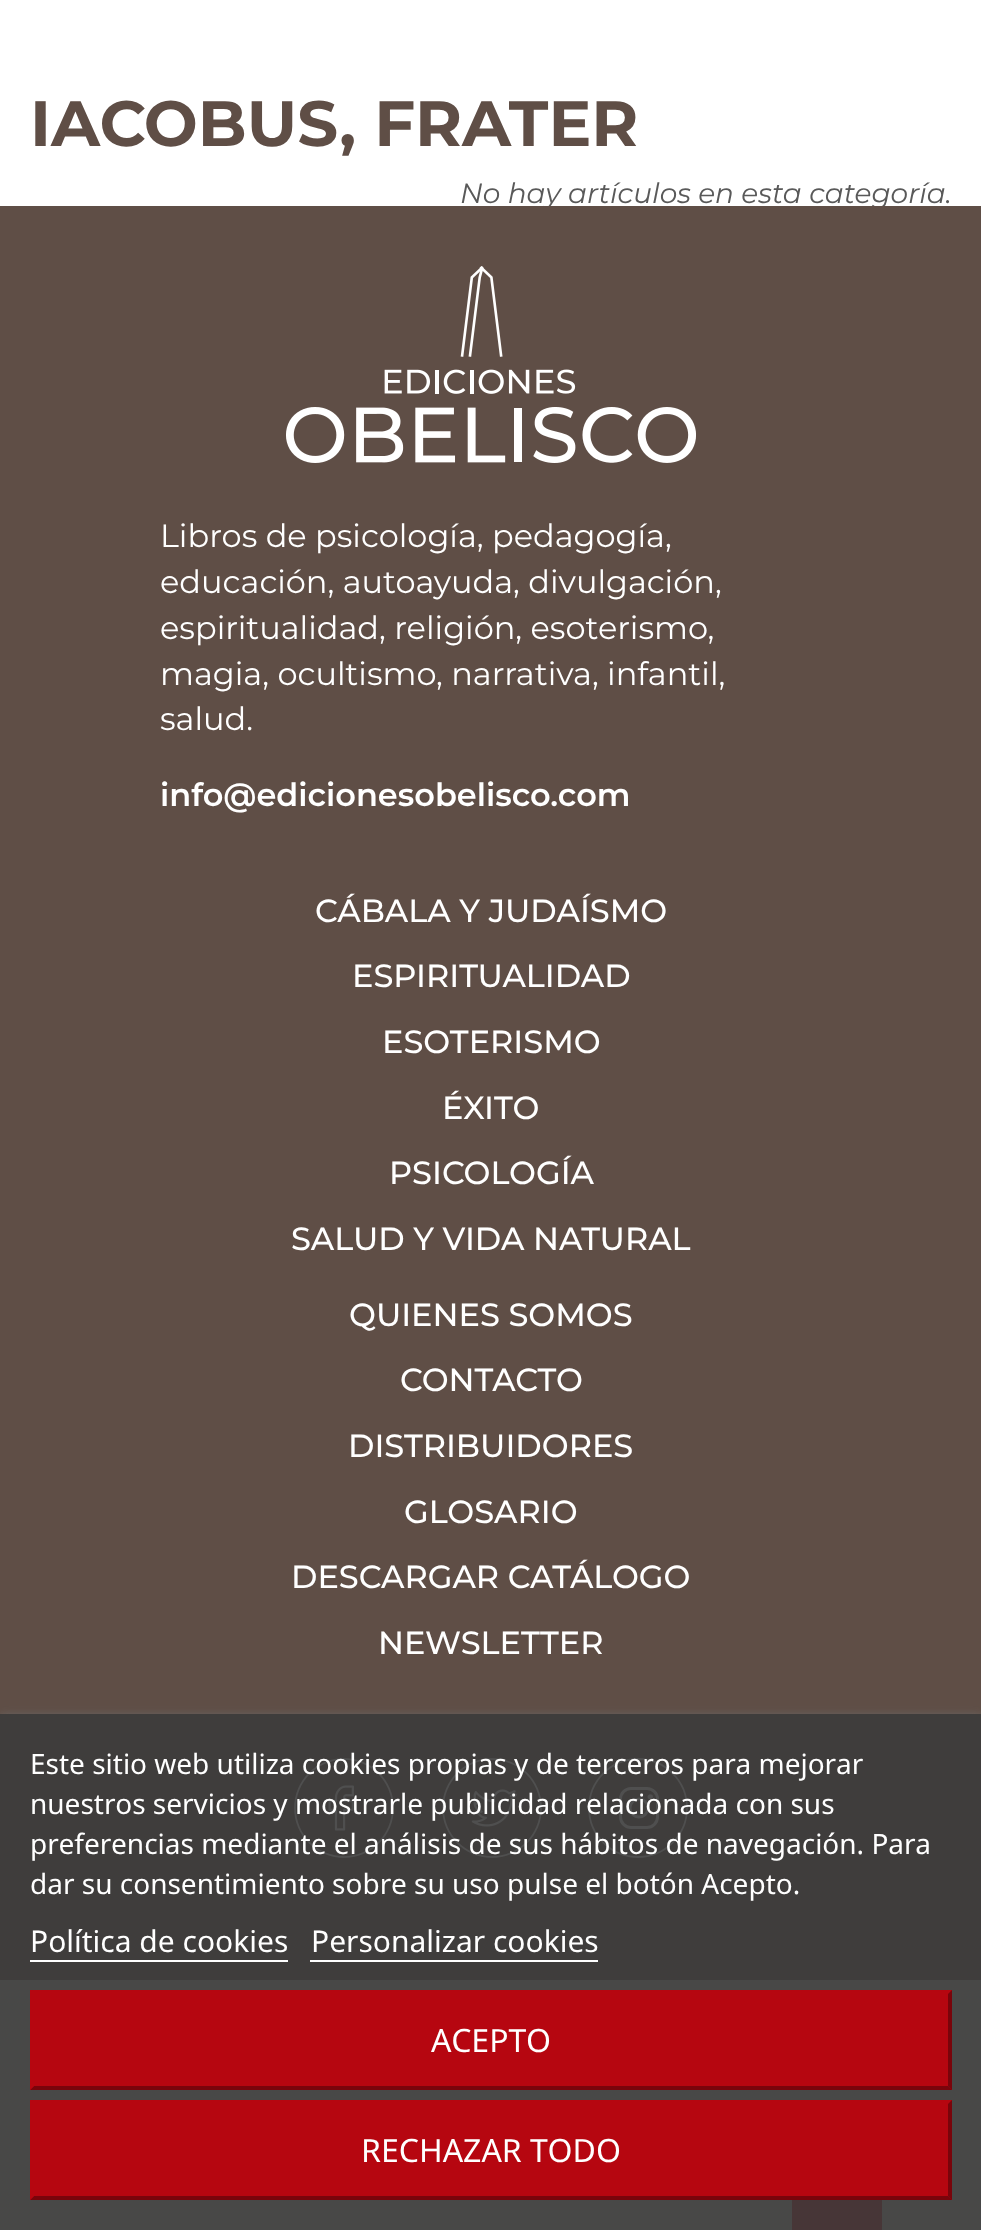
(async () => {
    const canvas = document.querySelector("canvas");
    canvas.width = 981;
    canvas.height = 2230;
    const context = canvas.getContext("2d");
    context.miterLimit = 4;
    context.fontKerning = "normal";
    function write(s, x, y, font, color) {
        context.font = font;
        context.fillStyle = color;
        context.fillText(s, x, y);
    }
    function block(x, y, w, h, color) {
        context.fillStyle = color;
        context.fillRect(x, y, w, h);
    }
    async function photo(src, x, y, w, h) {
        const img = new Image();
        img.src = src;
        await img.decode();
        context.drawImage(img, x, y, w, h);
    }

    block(0, 0, 981, 2230, "rgb(255, 255, 255)");
    write("IACOBUS, FRATER", 30, 146, "bold 64px Montserrat", "rgb(95, 78, 70)");
    write("No hay artículos en esta categoría.", 460, 203, "italic 28px Montserrat", "rgb(89, 89, 89)");
    block(0, 206, 981, 1508, "rgb(95, 78, 70)");
    block(0, 1714, 981, 266, "rgb(63, 61, 60)");
    await photo("media/1.png", 286, 266, 410, 197);
    write("Libros de psicología, pedagogía,", 160, 547, "32px Montserrat", "rgb(255, 255, 255)");
    write("educación, autoayuda, divulgación,", 160, 593, "32px Montserrat", "rgb(255, 255, 255)");
    write("espiritualidad, religión, esoterismo,", 160, 639, "32px Montserrat", "rgb(255, 255, 255)");
    write("magia, ocultismo, narrativa, infantil,", 160, 685, "32px Montserrat", "rgb(255, 255, 255)");
    write("salud.", 160, 730, "32px Montserrat", "rgb(255, 255, 255)");
    write("info@edicionesobelisco.com", 160, 806, "600 32px Montserrat", "rgb(255, 255, 255)");
    write("CÁBALA Y JUDAÍSMO", 315, 922, "500 32px Montserrat", "rgb(255, 255, 255)");
    write("ESPIRITUALIDAD", 352, 987, "500 32px Montserrat", "rgb(255, 255, 255)");
    write("ESOTERISMO", 382, 1053, "500 32px Montserrat", "rgb(255, 255, 255)");
    write("ÉXITO", 442, 1119, "500 32px Montserrat", "rgb(255, 255, 255)");
    write("PSICOLOGÍA", 389, 1184, "500 32px Montserrat", "rgb(255, 255, 255)");
    write("SALUD Y VIDA NATURAL", 291, 1250, "500 32px Montserrat", "rgb(255, 255, 255)");
    write("QUIENES SOMOS", 349, 1326, "500 32px Montserrat", "rgb(255, 255, 255)");
    write("CONTACTO", 400, 1391, "500 32px Montserrat", "rgb(255, 255, 255)");
    write("DISTRIBUIDORES", 348, 1457, "500 32px Montserrat", "rgb(255, 255, 255)");
    write("GLOSARIO", 404, 1523, "500 32px Montserrat", "rgb(255, 255, 255)");
    write("DESCARGAR CATÁLOGO", 291, 1588, "500 32px Montserrat", "rgb(255, 255, 255)");
    write("NEWSLETTER", 378, 1654, "500 32px Montserrat", "rgb(255, 255, 255)");
    await photo("media/2.png", 294, 1758, 100, 100);
    await photo("media/3.png", 442, 1758, 100, 100);
    context.beginPath();
    context.roundRect(620.5, 1788.5, 37, 39, 10.5);
    context.strokeStyle = "rgb(79, 79, 79)";
    context.lineWidth = 3;
    context.stroke();
    context.beginPath();
    context.arc(639, 1808, 9, 0, Math.PI * 2);
    context.lineWidth = 2.9;
    context.stroke();
    context.fillStyle = "rgb(79, 79, 79)";
    context.beginPath();
    context.moveTo(653, 1796.5);
    context.bezierCurveTo(653, 1800, 647.5, 1800, 647.5, 1797);
    context.bezierCurveTo(647.5, 1793.5, 653, 1793.5, 653, 1796.5);
    context.closePath();
    context.fill();
    context.beginPath();
    context.arc(638, 1808, 49, 0, Math.PI * 2);
    context.lineWidth = 1.8;
    context.stroke();
    block(0, 1980, 981, 250, "rgb(72, 72, 71)");
    block(792, 2200, 90, 30, "rgb(71, 54, 55)");
    context.save();
    context.beginPath();
    context.rect(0, 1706, 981, 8);
    context.clip();
    context.fillStyle = "rgb(112, 112, 112)";
    context.filter = "blur(5px)";
    context.beginPath();
    context.rect(0, 1716, 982, 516);
    context.fill();
    context.filter = "none";
    context.restore();
    write("Este sitio web utiliza cookies propias y de terceros para mejorar", 30, 1774, "28px Noto Sans", "rgb(255, 255, 255)");
    write("nuestros servicios y mostrarle publicidad relacionada con sus", 30, 1814, "28px Noto Sans", "rgb(255, 255, 255)");
    write("preferencias mediante el análisis de sus hábitos de navegación. Para", 30, 1854, "28px Noto Sans", "rgb(255, 255, 255)");
    write("dar su consentimiento sobre su uso pulse el botón Acepto.", 30, 1894, "28px Noto Sans", "rgb(255, 255, 255)");
    write("Política de cookies", 30, 1952, "30px Noto Sans", "rgb(255, 255, 255)");
    block(30, 1960, 258, 2, "rgb(255, 255, 255)");
    write("Personalizar cookies", 311, 1952, "30px Noto Sans", "rgb(255, 255, 255)");
    block(310, 1960, 288, 2, "rgb(255, 255, 255)");
    block(30, 1990, 922, 100, "rgb(182, 6, 16)");
    context.fillStyle = "rgb(121, 4, 11)";
    context.beginPath();
    context.moveTo(952, 1990);
    context.lineTo(952, 2090);
    context.lineTo(948, 2086);
    context.lineTo(948, 1994);
    context.closePath();
    context.fill();
    context.beginPath();
    context.moveTo(952, 2090);
    context.lineTo(30, 2090);
    context.lineTo(34, 2086);
    context.lineTo(948, 2086);
    context.closePath();
    context.fill();
    context.fillStyle = "rgb(182, 6, 16)";
    context.beginPath();
    context.moveTo(30, 2090);
    context.lineTo(30, 1990);
    context.lineTo(34, 1994);
    context.lineTo(34, 2086);
    context.closePath();
    context.fill();
    write("ACEPTO", 431, 2052, "32px Noto Sans", "rgb(255, 255, 255)");
    block(30, 2100, 922, 100, "rgb(182, 6, 16)");
    context.fillStyle = "rgb(121, 4, 11)";
    context.beginPath();
    context.moveTo(952, 2100);
    context.lineTo(952, 2200);
    context.lineTo(948, 2196);
    context.lineTo(948, 2104);
    context.closePath();
    context.fill();
    context.beginPath();
    context.moveTo(952, 2200);
    context.lineTo(30, 2200);
    context.lineTo(34, 2196);
    context.lineTo(948, 2196);
    context.closePath();
    context.fill();
    context.fillStyle = "rgb(182, 6, 16)";
    context.beginPath();
    context.moveTo(30, 2200);
    context.lineTo(30, 2100);
    context.lineTo(34, 2104);
    context.lineTo(34, 2196);
    context.closePath();
    context.fill();
    write("RECHAZAR TODO", 361, 2162, "32px Noto Sans", "rgb(255, 255, 255)");
})();
